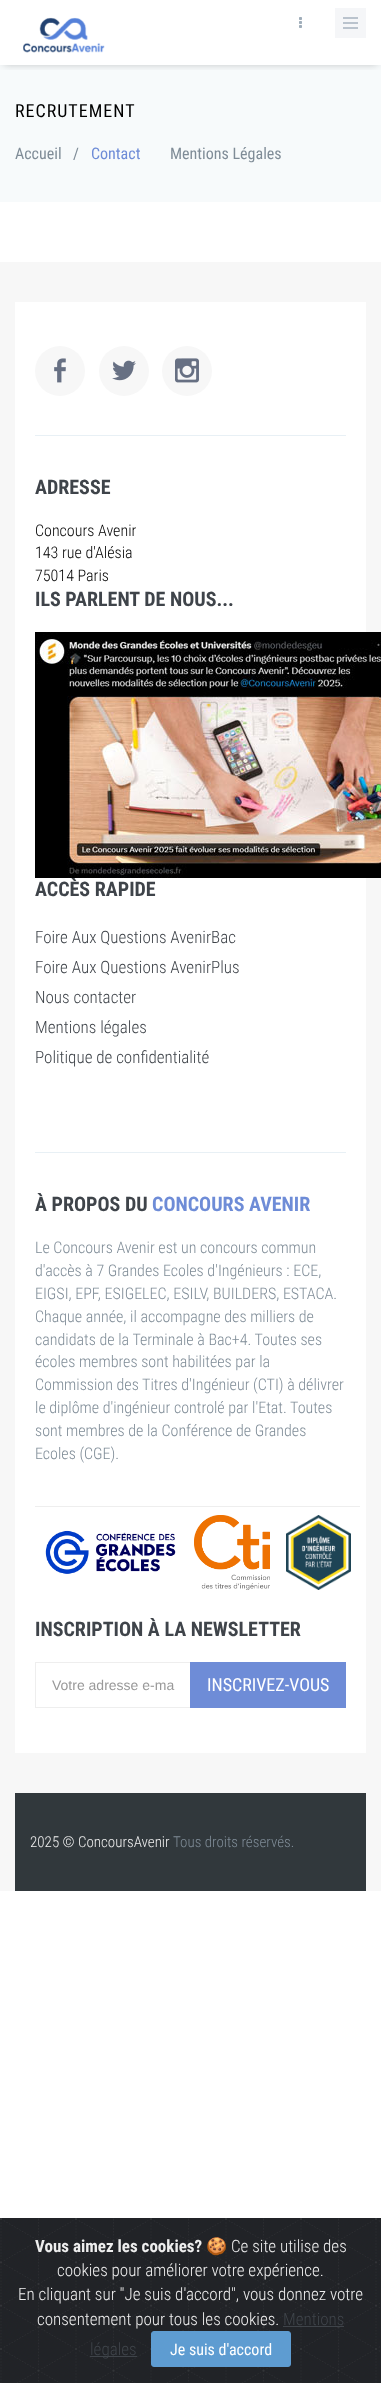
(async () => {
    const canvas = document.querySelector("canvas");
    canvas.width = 381;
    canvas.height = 2383;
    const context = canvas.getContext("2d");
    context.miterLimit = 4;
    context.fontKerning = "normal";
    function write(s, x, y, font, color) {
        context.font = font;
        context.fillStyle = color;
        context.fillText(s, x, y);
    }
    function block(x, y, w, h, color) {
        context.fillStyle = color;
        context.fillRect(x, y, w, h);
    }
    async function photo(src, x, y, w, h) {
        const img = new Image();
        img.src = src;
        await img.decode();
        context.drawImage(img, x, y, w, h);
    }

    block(0, 0, 381, 2383, "rgb(255, 255, 255)");
    block(0, 65, 381, 137, "rgb(247, 250, 251)");
    context.save();
    context.beginPath();
    context.rect(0, 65, 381, 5);
    context.clip();
    context.fillStyle = "rgba(0, 0, 0, 0.25)";
    context.filter = "blur(4.5px)";
    context.beginPath();
    context.rect(4, 7, 373, 57);
    context.fill();
    context.filter = "none";
    context.restore();
    await photo("media/1.png", 23, 17, 82, 36);
    await photo("media/2.png", 299, 17, 3, 11);
    block(335, 8, 31, 30, "rgb(245, 246, 248)");
    block(343, 17, 15, 2, "rgb(186, 195, 205)");
    block(343, 22, 15, 2, "rgb(186, 195, 205)");
    block(343, 27, 15, 2, "rgb(186, 195, 205)");
    context.letterSpacing = "1px";
    write("RECRUTEMENT", 15, 117, "18px Roboto Condensed", "rgb(0, 0, 0)");
    context.letterSpacing = "0px";
    write("Accueil", 15, 159, "16px Roboto Condensed", "rgb(127, 140, 151)");
    write("/", 73, 159, "16px Roboto Condensed", "rgb(127, 140, 151)");
    write("Contact", 91, 159, "16px Roboto Condensed", "rgb(110, 140, 215)");
    write("Mentions Légales", 170, 159, "16px Roboto Condensed", "rgb(127, 140, 151)");
    block(0, 262, 381, 1629, "rgb(247, 247, 247)");
    block(15, 302, 351, 1451, "rgb(255, 255, 255)");
    context.fillStyle = "rgb(247, 247, 247)";
    context.beginPath();
    context.arc(60, 371, 25, 0, Math.PI * 2);
    context.fill();
    await photo("media/3.png", 54, 358, 12, 25);
    context.beginPath();
    context.arc(124, 371, 25, 0, Math.PI * 2);
    context.fill();
    await photo("media/4.png", 112, 360, 24, 21);
    context.beginPath();
    context.arc(187, 371, 25, 0, Math.PI * 2);
    context.fill();
    await photo("media/5.png", 175, 358, 24, 25);
    block(35, 435, 311, 1, "rgb(232, 240, 245)");
    write("ADRESSE", 35, 494, "bold 20px Roboto Condensed", "rgb(63, 68, 74)");
    write("Concours Avenir", 35, 536, "300 16px Roboto Condensed", "rgb(0, 0, 0)");
    write("143 rue d'Alésia", 35, 558, "300 16px Roboto Condensed", "rgb(0, 0, 0)");
    write("75014 Paris", 35, 581, "300 16px Roboto Condensed", "rgb(0, 0, 0)");
    write("ILS PARLENT DE NOUS...", 35, 606, "bold 20px Roboto Condensed", "rgb(63, 68, 74)");
    await photo("media/6.png", 35, 632, 346, 246);
    write("ACCÈS RAPIDE", 35, 896, "bold 20px Roboto Condensed", "rgb(63, 68, 74)");
    write("Foire Aux Questions AvenirBac", 35, 943, "300 17px Roboto Condensed", "rgb(63, 68, 74)");
    write("Foire Aux Questions AvenirPlus", 35, 973, "300 17px Roboto Condensed", "rgb(63, 68, 74)");
    write("Nous contacter", 35, 1003, "300 17px Roboto Condensed", "rgb(63, 68, 74)");
    write("Mentions légales", 35, 1033, "300 17px Roboto Condensed", "rgb(63, 68, 74)");
    write("Politique de confidentialité", 35, 1063, "300 17px Roboto Condensed", "rgb(63, 68, 74)");
    block(35, 1152, 311, 1, "rgb(232, 240, 245)");
    write("À PROPOS DU", 35, 1211, "bold 20px Roboto Condensed", "rgb(63, 68, 74)");
    write("CONCOURS AVENIR", 152, 1211, "bold 20px Roboto Condensed", "rgb(110, 140, 215)");
    write("Le Concours Avenir est un concours commun", 35, 1253, "300 16px Roboto Condensed", "rgb(127, 140, 151)");
    write("d'accès à 7 Grandes Ecoles d'Ingénieurs : ECE,", 35, 1276, "300 16px Roboto Condensed", "rgb(127, 140, 151)");
    write("EIGSI, EPF, ESIGELEC, ESILV, BUILDERS, ESTACA.", 35, 1299, "300 16px Roboto Condensed", "rgb(127, 140, 151)");
    write("Chaque année, il accompagne des milliers de", 35, 1322, "300 16px Roboto Condensed", "rgb(127, 140, 151)");
    write("candidats de la Terminale à Bac+4. Toutes ses", 35, 1345, "300 16px Roboto Condensed", "rgb(127, 140, 151)");
    write("écoles membres sont habilitées par la", 35, 1367, "300 16px Roboto Condensed", "rgb(127, 140, 151)");
    write("Commission des Titres d'Ingénieur (CTI) à délivrer", 35, 1390, "300 16px Roboto Condensed", "rgb(127, 140, 151)");
    write("le diplôme d'ingénieur controlé par l'Etat. Toutes", 35, 1413, "300 16px Roboto Condensed", "rgb(127, 140, 151)");
    write("sont membres de la Conférence de Grandes", 35, 1436, "300 16px Roboto Condensed", "rgb(127, 140, 151)");
    write("Ecoles (CGE).", 35, 1459, "300 16px Roboto Condensed", "rgb(127, 140, 151)");
    block(35, 1506, 325, 1, "rgb(238, 238, 238)");
    await photo("media/7.png", 286, 1515, 65, 75);
    await photo("media/8.png", 45, 1530, 131, 44);
    await photo("media/9.png", 194, 1515, 76, 75);
    write("INSCRIPTION À LA NEWSLETTER", 35, 1636, "bold 20px Roboto Condensed", "rgb(63, 68, 74)");
    context.strokeStyle = "rgb(238, 238, 238)";
    context.strokeRect(35.5, 1662.5, 155, 45);
    write("Votre adresse e-ma", 52, 1690, "14px Liberation Sans", "rgb(153, 153, 153)");
    block(190, 1662, 156, 46, "rgb(110, 140, 215)");
    write("INSCRIVEZ-VOUS", 207, 1691, "18px Roboto Condensed", "rgb(255, 255, 255)");
    block(15, 1793, 351, 98, "rgb(49, 56, 60)");
    write("2025 © ConcoursAvenir", 30, 1847, "300 15px Roboto Condensed", "rgb(238, 238, 238)");
    write("Tous droits réservés.", 173, 1847, "300 15px Roboto Condensed", "rgb(127, 140, 151)");
    block(380, 2218, 1, 165, "rgb(33, 35, 39)");
    await photo("media/10.png", 0, 2218, 380, 165);
    write("Vous aimez les cookies?", 35, 2252, "bold 17px Roboto Condensed", "rgb(238, 238, 238)");
    write("🍪", 206, 2252, "17px Noto Color Emoji", "rgb(238, 238, 238)");
    write("Ce site utilise des", 231, 2252, "300 17px Roboto Condensed", "rgb(238, 238, 238)");
    write("cookies pour améliorer votre expérience.", 57, 2276, "300 17px Roboto Condensed", "rgb(238, 238, 238)");
    write("En cliquant sur \"Je suis d'accord\", vous donnez votre", 18, 2300, "300 17px Roboto Condensed", "rgb(238, 238, 238)");
    write("consentement pour tous les cookies.", 37, 2325, "300 17px Roboto Condensed", "rgb(238, 238, 238)");
    write("Mentions", 283, 2325, "300 17px Roboto Condensed", "rgb(63, 68, 74)");
    block(283, 2326, 61, 1, "rgb(63, 68, 74)");
    block(90, 2356, 47, 1, "rgb(63, 68, 74)");
    write("légales", 90, 2355, "300 17px Roboto Condensed", "rgb(63, 68, 74)");
    context.fillStyle = "rgb(94, 156, 209)";
    context.beginPath();
    context.roundRect(151.5, 2331.5, 139, 35, 2.5);
    context.fill();
    context.strokeStyle = "rgb(94, 156, 209)";
    context.stroke();
    write("Je suis d'accord", 170, 2355, "16px Roboto Condensed", "rgb(255, 255, 255)");
})();
